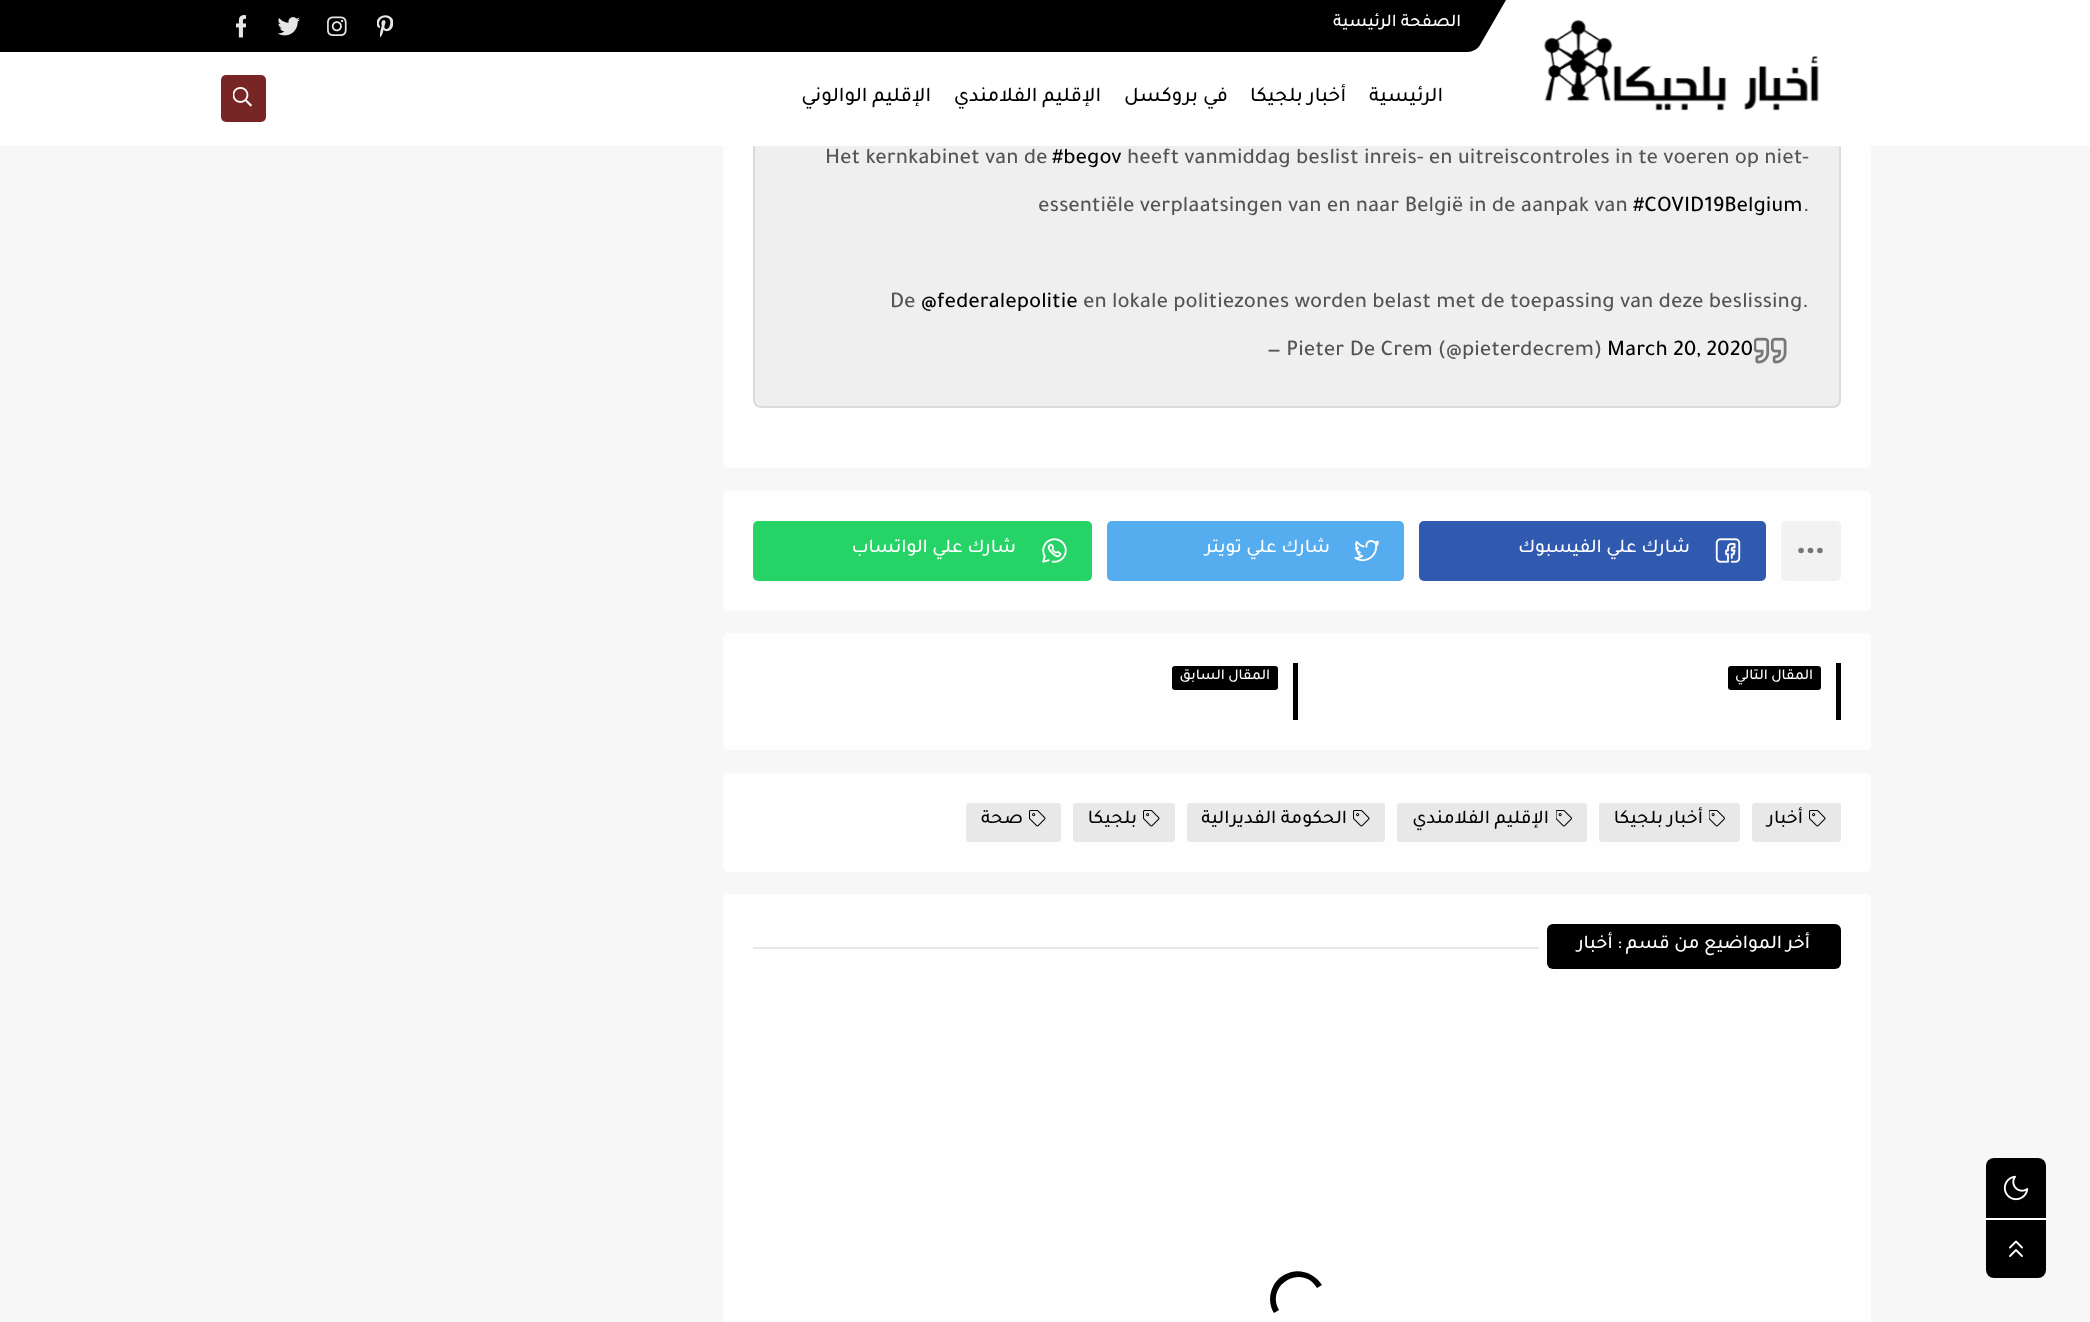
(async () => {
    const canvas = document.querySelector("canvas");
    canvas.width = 2090;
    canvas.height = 1322;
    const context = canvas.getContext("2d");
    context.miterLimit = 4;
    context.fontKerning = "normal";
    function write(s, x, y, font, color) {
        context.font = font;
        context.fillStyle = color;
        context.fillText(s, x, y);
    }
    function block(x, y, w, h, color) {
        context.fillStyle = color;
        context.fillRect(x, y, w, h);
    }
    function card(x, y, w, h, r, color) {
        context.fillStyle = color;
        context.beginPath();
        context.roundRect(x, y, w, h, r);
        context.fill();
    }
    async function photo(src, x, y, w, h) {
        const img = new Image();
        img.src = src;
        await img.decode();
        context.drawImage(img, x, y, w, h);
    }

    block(0, 0, 2090, 1322, "rgb(247, 247, 247)");
    card(723, -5, 1148, 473, 5, "rgb(254, 254, 254)");
    context.fillStyle = "rgb(239, 239, 239)";
    context.beginPath();
    context.roundRect(754, 58, 1086, 349, 7);
    context.fill();
    context.strokeStyle = "rgb(219, 219, 219)";
    context.lineWidth = 2;
    context.stroke();
    block(0, 0, 2090, 146, "rgb(255, 255, 255)");
    context.fillStyle = "rgb(0, 0, 0)";
    context.beginPath();
    context.moveTo(-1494, 0);
    context.lineTo(1506, 0);
    context.lineTo(1480, 45);
    context.bezierCurveTo(1478, 49, 1472, 52, 1468, 52);
    context.lineTo(-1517, 52);
    context.bezierCurveTo(-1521, 52, -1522, 49, -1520, 45);
    context.closePath();
    context.fill();
    await photo("media/1.png", 236, 15, 10, 23);
    await photo("media/2.png", 278, 17, 22, 19);
    await photo("media/3.png", 327, 16, 20, 20);
    await photo("media/4.png", 377, 15, 16, 23);
    context.direction = "rtl";
    write("الصفحة الرئيسية", 1461, 26, "500 18px Tajawal", "rgb(255, 255, 255)");
    card(221, 75, 45, 47, 5, "rgb(120, 37, 37)");
    await photo("media/5.png", 233, 87, 19, 20);
    write("الإقليم الوالوني", 931, 101, "500 21px Tajawal", "rgb(0, 0, 0)");
    write("الإقليم الفلامندي", 1101, 101, "500 21px Tajawal", "rgb(0, 0, 0)");
    write("في بروكسل", 1228, 101, "500 21px Tajawal", "rgb(0, 0, 0)");
    write("أخبار بلجيكا", 1346, 101, "500 21px Tajawal", "rgb(0, 0, 0)");
    write("الرئيسية", 1443, 101, "500 21px Tajawal", "rgb(0, 0, 0)");
    await photo("media/6.png", 1543, 19, 276, 92);
    context.direction = "ltr";
    write("Het kernkabinet van de", 825, 163, "500 22.5px Tajawal", "rgb(84, 84, 84)");
    write("#begov", 1052, 163, "500 22.5px Tajawal", "rgb(0, 0, 0)");
    write("heeft vanmiddag beslist inreis- en uitreiscontroles in te voeren op niet-", 1127, 163, "500 22.5px Tajawal", "rgb(84, 84, 84)");
    write("essentiële verplaatsingen van en naar België in de aanpak van", 1038, 211, "500 22.5px Tajawal", "rgb(84, 84, 84)");
    write("#COVID19Belgium", 1633, 211, "500 22.5px Tajawal", "rgb(0, 0, 0)");
    write(".", 1803, 211, "500 22.5px Tajawal", "rgb(84, 84, 84)");
    write("De", 890, 307, "500 22.5px Tajawal", "rgb(84, 84, 84)");
    write("@federalepolitie", 921, 307, "500 22.5px Tajawal", "rgb(0, 0, 0)");
    write("en lokale politiezones worden belast met de toepassing van deze beslissing.", 1083, 307, "500 22.5px Tajawal", "rgb(84, 84, 84)");
    write("— Pieter De Crem (@pieterdecrem)", 1267, 355, "500 22.5px Tajawal", "rgb(84, 84, 84)");
    write("March 20, 2020", 1607, 355, "500 22.5px Tajawal", "rgb(0, 0, 0)");
    await photo("media/7.png", 1754, 337, 33, 27);
    card(723, 491, 1148, 120, 5, "rgb(254, 254, 254)");
    card(753, 521, 339, 60, 5, "rgb(37, 211, 102)");
    context.direction = "rtl";
    write("شارك علي الواتساب", 1016, 552, "500 19.5px Tajawal", "rgb(255, 255, 255)");
    await photo("media/8.png", 1042, 538, 25, 25);
    card(1107, 521, 297, 60, 5, "rgb(85, 172, 239)");
    write("شارك علي تويتر", 1330, 552, "500 19.5px Tajawal", "rgb(255, 255, 255)");
    await photo("media/9.png", 1354, 540, 25, 22);
    card(1419, 521, 347, 60, 5, "rgb(48, 89, 176)");
    write("شارك علي الفيسبوك", 1690, 552, "500 19.5px Tajawal", "rgb(255, 255, 255)");
    await photo("media/10.png", 1715, 538, 26, 25);
    card(1781, 521, 60, 60, 5, "rgb(242, 242, 242)");
    context.fillStyle = "rgb(118, 118, 118)";
    context.beginPath();
    context.arc(1810.5, 550.5, 2.8, 0, Math.PI * 2);
    context.fill();
    context.beginPath();
    context.arc(1819.9, 550.5, 2.8, 0, Math.PI * 2);
    context.fill();
    context.beginPath();
    context.arc(1801.1, 550.5, 2.8, 0, Math.PI * 2);
    context.fill();
    card(723, 633, 1148, 117, 5, "rgb(254, 254, 254)");
    block(1293, 663, 5, 57, "rgb(0, 0, 0)");
    card(1172, 666, 106, 24, 3, "rgb(0, 0, 0)");
    write("المقال السابق", 1270, 679, "500 15px Tajawal", "rgb(255, 255, 255)");
    block(1836, 663, 5, 57, "rgb(0, 0, 0)");
    card(1728, 666, 93, 24, 3, "rgb(0, 0, 0)");
    write("المقال التالي", 1813, 679, "500 15px Tajawal", "rgb(255, 255, 255)");
    card(723, 773, 1148, 99, 5, "rgb(254, 254, 254)");
    card(966, 803, 95, 39, 3, "rgb(232, 232, 232)");
    write("صحة", 1023, 823, "500 19.5px Tajawal", "rgb(0, 0, 0)");
    await photo("media/11.png", 1029, 810, 17, 17);
    card(1073, 803, 102, 39, 3, "rgb(232, 232, 232)");
    write("بلجيكا", 1137, 823, "500 19.5px Tajawal", "rgb(0, 0, 0)");
    await photo("media/11.png", 1143, 810, 17, 17);
    card(1187, 803, 198, 39, 3, "rgb(232, 232, 232)");
    write("الحكومة الفديرالية", 1347, 823, "500 19.5px Tajawal", "rgb(0, 0, 0)");
    await photo("media/11.png", 1353, 810, 17, 17);
    card(1397, 803, 190, 39, 3, "rgb(232, 232, 232)");
    write("الإقليم الفلامندي", 1549, 823, "500 19.5px Tajawal", "rgb(0, 0, 0)");
    await photo("media/12.png", 1556, 810, 16, 17);
    card(1599, 803, 141, 39, 3, "rgb(232, 232, 232)");
    write("أخبار بلجيكا", 1703, 823, "500 19.5px Tajawal", "rgb(0, 0, 0)");
    await photo("media/12.png", 1709, 810, 16, 17);
    card(1752, 803, 89, 39, 3, "rgb(232, 232, 232)");
    write("أخبار", 1803, 823, "500 19.5px Tajawal", "rgb(0, 0, 0)");
    await photo("media/11.png", 1809, 810, 17, 17);
    card(723, 894, 1148, 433, 5, "rgb(254, 254, 254)");
    block(753, 947, 786, 2, "rgb(232, 232, 232)");
    card(1547, 924, 294, 45, 6, "rgb(0, 0, 0)");
    write(": أخبار", 1622, 948, "500 19.5px Tajawal", "rgb(255, 255, 255)");
    write("أخر المواضيع من قسم", 1810, 948, "500 19.5px Tajawal", "rgb(255, 255, 255)");
    context.fillStyle = "rgb(0, 0, 0)";
    context.beginPath();
    context.moveTo(1322, 1285);
    context.bezierCurveTo(1314, 1272, 1297, 1267, 1284, 1275);
    context.bezierCurveTo(1271, 1282, 1266, 1300, 1274, 1313);
    context.lineTo(1279, 1310);
    context.bezierCurveTo(1265, 1285, 1302, 1263, 1317, 1288);
    context.closePath();
    context.fill();
    card(1986, 1158, 60, 120, 8, "rgb(0, 0, 0)");
    await photo("media/13.png", 2003, 1175, 26, 26);
    block(1986, 1218, 60, 2, "rgb(255, 255, 255)");
    context.beginPath();
    context.moveTo(2022, 1247.5);
    context.lineTo(2016, 1241.5);
    context.lineTo(2010, 1247.5);
    context.moveTo(2022, 1256);
    context.lineTo(2016, 1250);
    context.lineTo(2010, 1256);
    context.strokeStyle = "rgb(255, 255, 255)";
    context.lineWidth = 1.8;
    context.lineCap = "round";
    context.lineJoin = "round";
    context.stroke();
})();
